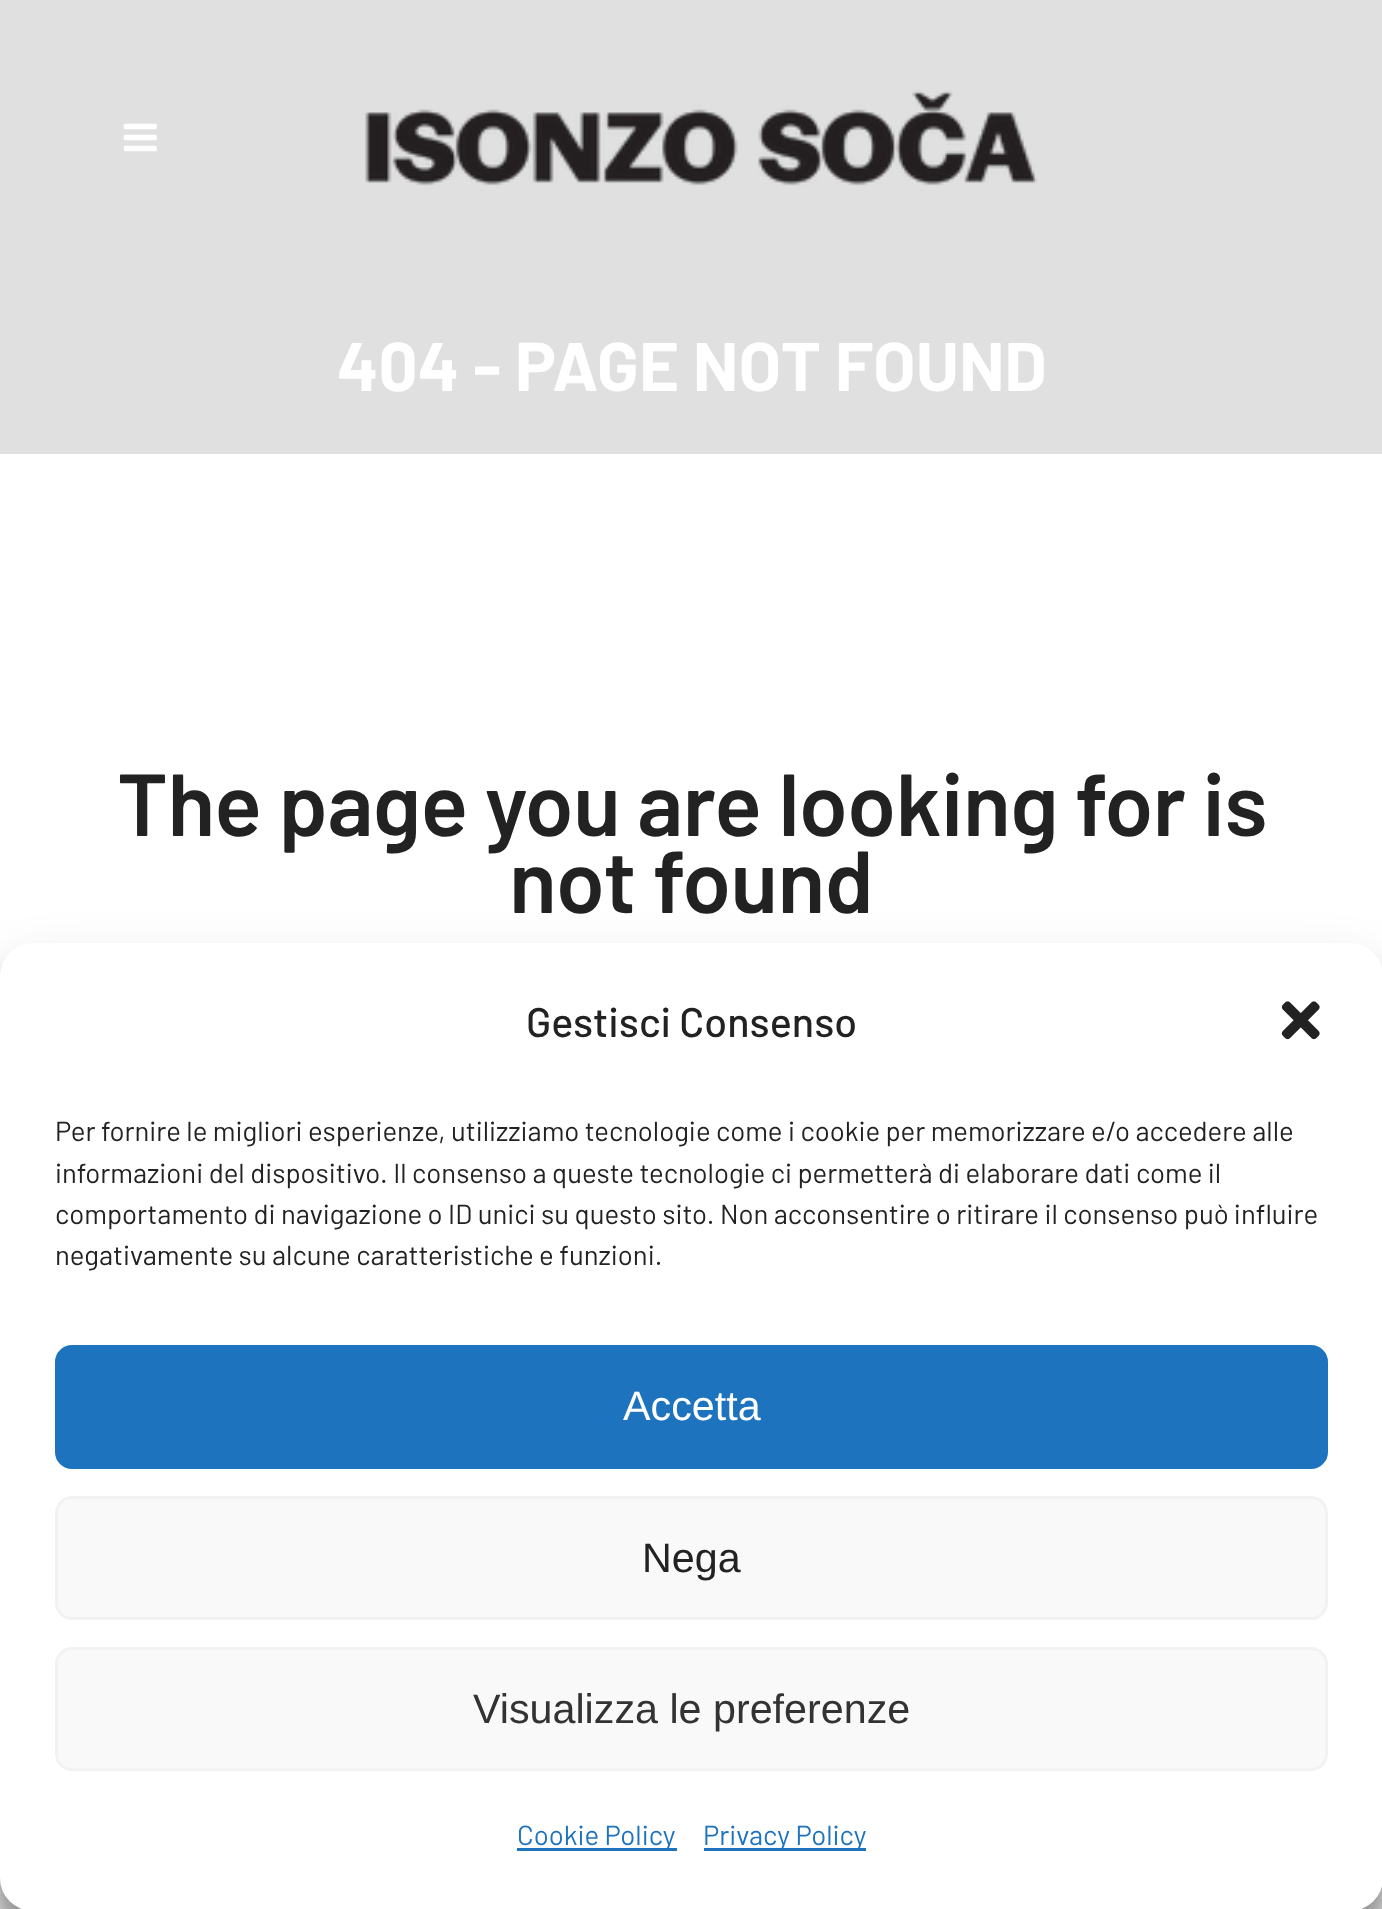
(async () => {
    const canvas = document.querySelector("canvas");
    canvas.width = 1382;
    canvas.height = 1909;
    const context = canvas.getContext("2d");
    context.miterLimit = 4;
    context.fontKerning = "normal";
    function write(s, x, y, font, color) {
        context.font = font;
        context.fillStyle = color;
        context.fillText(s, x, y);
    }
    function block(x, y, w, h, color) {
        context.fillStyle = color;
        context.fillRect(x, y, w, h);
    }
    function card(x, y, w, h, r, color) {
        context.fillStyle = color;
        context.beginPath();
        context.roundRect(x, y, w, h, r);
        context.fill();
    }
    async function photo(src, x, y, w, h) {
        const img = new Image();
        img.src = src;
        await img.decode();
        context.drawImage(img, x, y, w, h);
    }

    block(0, 0, 1382, 1909, "rgb(255, 255, 255)");
    block(0, 0, 1382, 454, "rgb(224, 224, 224)");
    await photo("media/1.png", 123, 123, 34, 29);
    await photo("media/2.png", 365, 90, 673, 96);
    write("404 - PAGE NOT FOUND", 337, 391, "bold 68.75px Barlow", "rgb(255, 255, 255)");
    context.letterSpacing = "-0.55px";
    write("The page you are looking for is", 117, 836, "600 88px Barlow", "rgb(34, 34, 34)");
    write("not found", 509, 913, "600 88px Barlow", "rgb(34, 34, 34)");
    block(0, 1878, 1382, 31, "rgb(224, 224, 224)");
    context.fillStyle = "rgba(0, 0, 0, 0.23)";
    context.filter = "blur(8px)";
    context.beginPath();
    context.roundRect(0, 960, 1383, 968, 33);
    context.fill();
    context.filter = "none";
    context.fillStyle = "rgba(0, 0, 0, 0.19)";
    context.filter = "blur(27.5px)";
    context.beginPath();
    context.roundRect(0, 971, 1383, 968, 33);
    context.fill();
    context.filter = "none";
    card(0, 943, 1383, 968, 33, "rgb(255, 255, 255)");
    context.letterSpacing = "0px";
    write("Gestisci Consenso", 526, 1037, "500 41.25px Barlow", "rgb(34, 34, 34)");
    await photo("media/3.png", 1281, 1001, 39, 39);
    write("Per fornire le migliori esperienze, utilizziamo tecnologie come i cookie per memorizzare e/o accedere alle", 55, 1141, "27.5px Barlow", "rgb(34, 34, 34)");
    write("informazioni del dispositivo. Il consenso a queste tecnologie ci permetterà di elaborare dati come il", 55, 1183, "27.5px Barlow", "rgb(34, 34, 34)");
    write("comportamento di navigazione o ID unici su questo sito. Non acconsentire o ritirare il consenso può influire", 55, 1224, "27.5px Barlow", "rgb(34, 34, 34)");
    write("negativamente su alcune caratteristiche e funzioni.", 55, 1265, "27.5px Barlow", "rgb(34, 34, 34)");
    context.fillStyle = "rgb(30, 115, 190)";
    context.beginPath();
    context.roundRect(56.5, 1346.5, 1270, 121, 15.5);
    context.fill();
    context.strokeStyle = "rgb(30, 115, 190)";
    context.lineWidth = 3;
    context.stroke();
    write("Accetta", 623, 1420, "41.25px Liberation Sans", "rgb(255, 255, 255)");
    context.fillStyle = "rgb(249, 249, 249)";
    context.beginPath();
    context.roundRect(56.5, 1497.5, 1270, 121, 15.5);
    context.fill();
    context.strokeStyle = "rgb(242, 242, 242)";
    context.stroke();
    write("Nega", 642, 1572, "41.25px Liberation Sans", "rgb(34, 34, 34)");
    context.fillStyle = "rgb(249, 249, 249)";
    context.beginPath();
    context.roundRect(56.5, 1648.5, 1270, 121, 15.5);
    context.fill();
    context.stroke();
    write("Visualizza le preferenze", 473, 1723, "41.25px Liberation Sans", "rgb(51, 51, 51)");
    block(517, 1848, 160, 3, "rgb(30, 115, 190)");
    write("Cookie Policy", 517, 1845, "27.5px Barlow", "rgb(30, 115, 190)");
    block(704, 1848, 162, 3, "rgb(30, 115, 190)");
    write("Privacy Policy", 703, 1845, "27.5px Barlow", "rgb(30, 115, 190)");
})();
